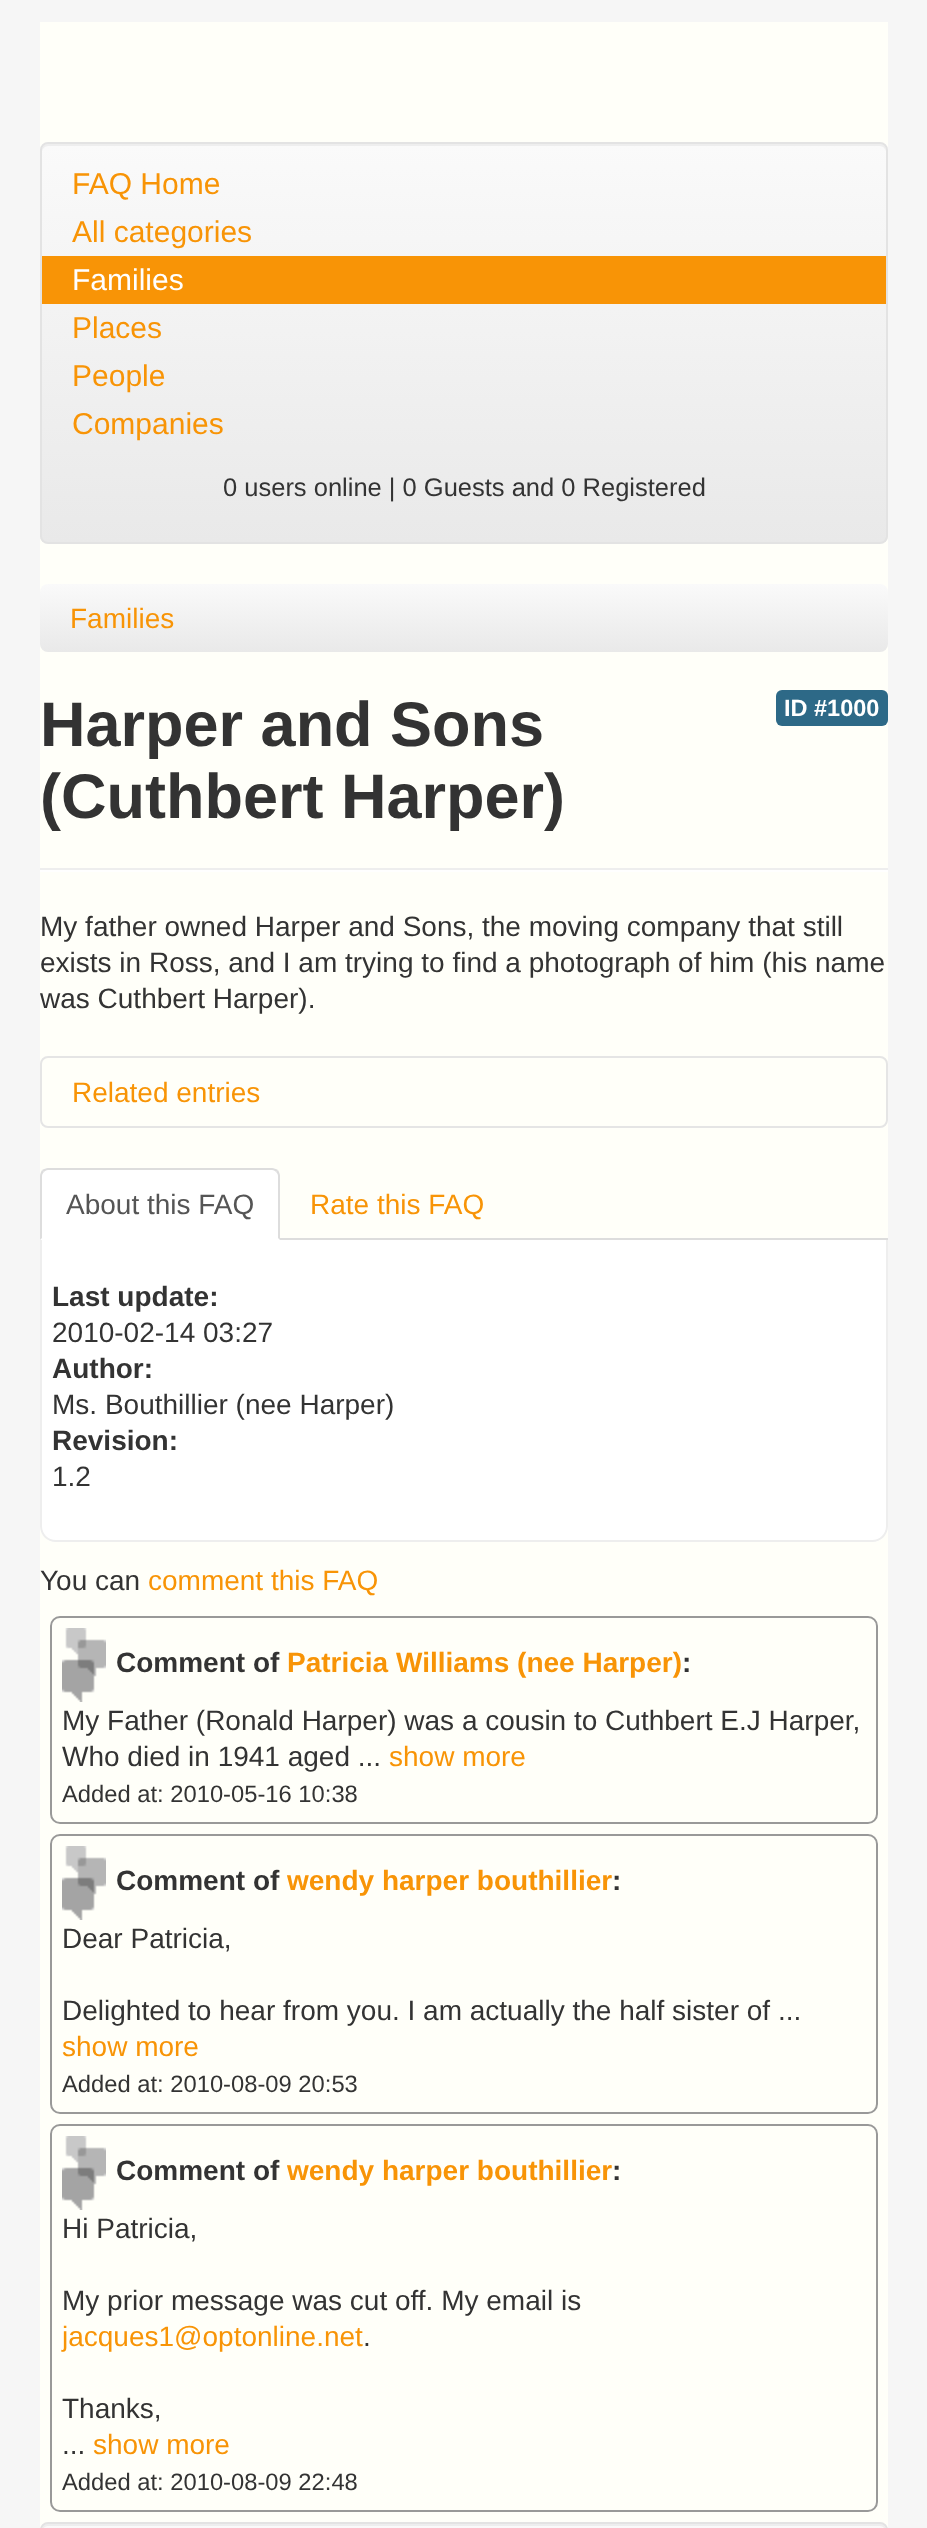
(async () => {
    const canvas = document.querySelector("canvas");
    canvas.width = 927;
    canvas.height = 2528;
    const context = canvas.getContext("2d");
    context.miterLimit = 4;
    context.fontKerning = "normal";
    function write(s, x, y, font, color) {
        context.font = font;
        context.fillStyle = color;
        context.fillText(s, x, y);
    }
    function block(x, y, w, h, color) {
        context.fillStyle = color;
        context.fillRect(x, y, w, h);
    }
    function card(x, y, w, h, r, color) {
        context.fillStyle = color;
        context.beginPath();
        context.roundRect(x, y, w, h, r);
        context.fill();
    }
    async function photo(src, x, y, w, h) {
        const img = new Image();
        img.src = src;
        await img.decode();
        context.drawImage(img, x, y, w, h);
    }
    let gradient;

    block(0, 0, 927, 2528, "rgb(246, 246, 246)");
    block(40, 22, 848, 2506, "rgb(255, 255, 249)");
    context.save();
    context.beginPath();
    context.roundRect(40, 142, 848, 402, 8);
    context.clip();
    gradient = context.createLinearGradient(464, 144, 464, 542);
    gradient.addColorStop(0, "rgb(250, 250, 250)");
    gradient.addColorStop(1, "rgb(233, 233, 233)");
    context.fillStyle = gradient;
    context.fillRect(40, 144, 848, 398);
    context.restore();
    context.fillStyle = "rgb(238, 238, 238)";
    context.beginPath();
    context.moveTo(48, 146);
    context.lineTo(880, 146);
    context.bezierCurveTo(883, 146, 886, 149, 886, 152);
    context.bezierCurveTo(886, 148, 885, 144, 880, 144);
    context.lineTo(48, 144);
    context.bezierCurveTo(43, 144, 42, 148, 42, 152);
    context.bezierCurveTo(42, 149, 45, 146, 48, 146);
    context.closePath();
    context.fill();
    context.beginPath();
    context.roundRect(41, 143, 846, 400, 7);
    context.strokeStyle = "rgb(227, 227, 227)";
    context.lineWidth = 2;
    context.stroke();
    write("FAQ Home", 72, 194, "30px Liberation Sans", "rgb(248, 148, 6)");
    write("All categories", 72, 242, "30px Liberation Sans", "rgb(248, 148, 6)");
    block(42, 256, 844, 48, "rgb(248, 148, 6)");
    write("Families", 72, 290, "30px Liberation Sans", "rgb(255, 255, 255)");
    write("Places", 72, 338, "30px Liberation Sans", "rgb(248, 148, 6)");
    write("People", 72, 386, "30px Liberation Sans", "rgb(248, 148, 6)");
    write("Companies", 72, 434, "30px Liberation Sans", "rgb(248, 148, 6)");
    write("0 users online | 0 Guests and 0 Registered", 223, 496, "25.5px Liberation Sans", "rgb(51, 51, 51)");
    gradient = context.createLinearGradient(464, 584, 464, 652);
    gradient.addColorStop(0, "rgb(250, 250, 250)");
    gradient.addColorStop(1, "rgb(233, 233, 233)");
    context.fillStyle = gradient;
    context.beginPath();
    context.roundRect(40, 584, 848, 68, 8);
    context.fill();
    write("Families", 70, 628, "28px Liberation Sans", "rgb(248, 148, 6)");
    write("Harper and Sons", 40, 746, "bold 63px Liberation Sans", "rgb(51, 51, 51)");
    write("(Cuthbert Harper)", 40, 818, "bold 63px Liberation Sans", "rgb(51, 51, 51)");
    card(776, 690, 112, 36, 6, "rgb(45, 105, 135)");
    write("ID #1000", 784, 716, "bold 23.5px Liberation Sans", "rgb(255, 255, 255)");
    block(40, 868, 848, 2, "rgb(238, 238, 238)");
    block(40, 870, 848, 2, "rgb(255, 255, 255)");
    write("My father owned Harper and Sons, the moving company that still", 40, 936, "28px Liberation Sans", "rgb(51, 51, 51)");
    write("exists in Ross, and I am trying to find a photograph of him (his name", 40, 972, "28px Liberation Sans", "rgb(51, 51, 51)");
    write("was Cuthbert Harper).", 40, 1008, "28px Liberation Sans", "rgb(51, 51, 51)");
    context.beginPath();
    context.roundRect(41, 1057, 846, 70, 7);
    context.strokeStyle = "rgb(229, 229, 229)";
    context.stroke();
    write("Related entries", 72, 1102, "28px Liberation Sans", "rgb(248, 148, 6)");
    block(280, 1238, 608, 2, "rgb(221, 221, 221)");
    context.fillStyle = "rgb(255, 255, 255)";
    context.beginPath();
    context.roundRect(40, 1168, 240, 72, [8, 8, 0, 0]);
    context.fill();
    context.fillStyle = "rgb(221, 221, 221)";
    context.beginPath();
    context.moveTo(48, 1168);
    context.bezierCurveTo(46, 1168, 44, 1169, 42, 1170);
    context.lineTo(44, 1172);
    context.bezierCurveTo(45, 1171, 46, 1170, 48, 1170);
    context.lineTo(272, 1170);
    context.bezierCurveTo(274, 1170, 275, 1171, 276, 1172);
    context.lineTo(278, 1170);
    context.bezierCurveTo(276, 1169, 274, 1168, 272, 1168);
    context.closePath();
    context.fill();
    context.beginPath();
    context.moveTo(280, 1240);
    context.lineTo(280, 1176);
    context.bezierCurveTo(280, 1174, 279, 1172, 278, 1170);
    context.lineTo(276, 1172);
    context.bezierCurveTo(277, 1173, 278, 1174, 278, 1176);
    context.lineTo(278, 1238);
    context.closePath();
    context.fill();
    context.beginPath();
    context.moveTo(40, 1240);
    context.lineTo(42, 1238);
    context.lineTo(42, 1176);
    context.bezierCurveTo(42, 1174, 43, 1173, 44, 1172);
    context.lineTo(42, 1170);
    context.bezierCurveTo(41, 1172, 40, 1174, 40, 1176);
    context.closePath();
    context.fill();
    write("About this FAQ", 66, 1214, "28px Liberation Sans", "rgb(85, 85, 85)");
    write("Rate this FAQ", 310, 1214, "28px Liberation Sans", "rgb(248, 148, 6)");
    context.fillStyle = "rgb(255, 255, 255)";
    context.beginPath();
    context.roundRect(40, 1240, 848, 302, [0, 0, 16, 16]);
    context.fill();
    context.fillStyle = "rgb(238, 238, 238)";
    context.beginPath();
    context.moveTo(40, 1240);
    context.lineTo(888, 1240);
    context.lineTo(888, 1526);
    context.bezierCurveTo(888, 1535, 881, 1542, 872, 1542);
    context.lineTo(56, 1542);
    context.bezierCurveTo(47, 1542, 40, 1535, 40, 1526);
    context.closePath();
    context.moveTo(42, 1240);
    context.lineTo(886, 1240);
    context.lineTo(886, 1526);
    context.bezierCurveTo(886, 1534, 880, 1540, 872, 1540);
    context.lineTo(56, 1540);
    context.bezierCurveTo(48, 1540, 42, 1534, 42, 1526);
    context.closePath();
    context.fill("evenodd");
    write("Last update:", 52, 1306, "bold 28px Liberation Sans", "rgb(51, 51, 51)");
    write("2010-02-14 03:27", 52, 1342, "28px Liberation Sans", "rgb(51, 51, 51)");
    write("Author:", 52, 1378, "bold 28px Liberation Sans", "rgb(51, 51, 51)");
    write("Ms. Bouthillier (nee Harper)", 52, 1414, "28px Liberation Sans", "rgb(51, 51, 51)");
    write("Revision:", 52, 1450, "bold 28px Liberation Sans", "rgb(51, 51, 51)");
    write("1.2", 52, 1486, "28px Liberation Sans", "rgb(51, 51, 51)");
    write("You can", 40, 1590, "28px Liberation Sans", "rgb(51, 51, 51)");
    write("comment this FAQ", 148, 1590, "28px Liberation Sans", "rgb(248, 148, 6)");
    context.beginPath();
    context.roundRect(51, 1617, 826, 206, 9);
    context.strokeStyle = "rgb(153, 153, 153)";
    context.stroke();
    await photo("media/1.png", 62, 1628, 44, 74);
    write("Comment of", 116, 1672, "bold 28px Liberation Sans", "rgb(51, 51, 51)");
    write("Patricia Williams (nee Harper)", 287, 1672, "bold 28px Liberation Sans", "rgb(248, 148, 6)");
    write(":", 682, 1672, "bold 28px Liberation Sans", "rgb(51, 51, 51)");
    write("My Father (Ronald Harper) was a cousin to Cuthbert E.J Harper,", 62, 1730, "28px Liberation Sans", "rgb(51, 51, 51)");
    write("Who died in 1941 aged ...", 62, 1766, "28px Liberation Sans", "rgb(51, 51, 51)");
    write("show more", 389, 1766, "28px Liberation Sans", "rgb(248, 148, 6)");
    write("Added at: 2010-05-16 10:38", 62, 1802, "23.75px Liberation Sans", "rgb(51, 51, 51)");
    context.beginPath();
    context.roundRect(51, 1835, 826, 278, 9);
    context.stroke();
    await photo("media/1.png", 62, 1846, 44, 74);
    write("Comment of", 116, 1890, "bold 28px Liberation Sans", "rgb(51, 51, 51)");
    write("wendy harper bouthillier", 287, 1890, "bold 28px Liberation Sans", "rgb(248, 148, 6)");
    write(":", 612, 1890, "bold 28px Liberation Sans", "rgb(51, 51, 51)");
    write("Dear Patricia,", 62, 1948, "28px Liberation Sans", "rgb(51, 51, 51)");
    write("Delighted to hear from you. I am actually the half sister of ...", 62, 2020, "28px Liberation Sans", "rgb(51, 51, 51)");
    write("show more", 62, 2056, "28px Liberation Sans", "rgb(248, 148, 6)");
    write("Added at: 2010-08-09 20:53", 62, 2092, "23.75px Liberation Sans", "rgb(51, 51, 51)");
    context.beginPath();
    context.roundRect(51, 2125, 826, 386, 9);
    context.stroke();
    await photo("media/1.png", 62, 2136, 44, 74);
    write("Comment of", 116, 2180, "bold 28px Liberation Sans", "rgb(51, 51, 51)");
    write("wendy harper bouthillier", 287, 2180, "bold 28px Liberation Sans", "rgb(248, 148, 6)");
    write(":", 612, 2180, "bold 28px Liberation Sans", "rgb(51, 51, 51)");
    write("Hi Patricia,", 62, 2238, "28px Liberation Sans", "rgb(51, 51, 51)");
    write("My prior message was cut off. My email is", 62, 2310, "28px Liberation Sans", "rgb(51, 51, 51)");
    write("jacques1@optonline.net", 62, 2346, "28px Liberation Sans", "rgb(248, 148, 6)");
    write(".", 363, 2346, "28px Liberation Sans", "rgb(51, 51, 51)");
    write("Thanks,", 62, 2418, "28px Liberation Sans", "rgb(51, 51, 51)");
    write("...", 62, 2454, "28px Liberation Sans", "rgb(51, 51, 51)");
    write("show more", 93, 2454, "28px Liberation Sans", "rgb(248, 148, 6)");
    write("Added at: 2010-08-09 22:48", 62, 2490, "23.75px Liberation Sans", "rgb(51, 51, 51)");
    context.save();
    context.beginPath();
    context.roundRect(40, 2522, 848, 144, 8);
    context.clip();
    gradient = context.createLinearGradient(464, 2524, 464, 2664);
    gradient.addColorStop(0, "rgb(250, 250, 250)");
    gradient.addColorStop(1, "rgb(233, 233, 233)");
    context.fillStyle = gradient;
    context.fillRect(40, 2524, 848, 4);
    context.restore();
    context.fillStyle = "rgb(238, 238, 238)";
    context.beginPath();
    context.moveTo(48, 2526);
    context.lineTo(880, 2526);
    context.bezierCurveTo(883, 2526, 886, 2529, 886, 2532);
    context.bezierCurveTo(886, 2528, 885, 2524, 880, 2524);
    context.lineTo(48, 2524);
    context.bezierCurveTo(43, 2524, 42, 2528, 42, 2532);
    context.bezierCurveTo(42, 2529, 45, 2526, 48, 2526);
    context.closePath();
    context.fill();
    context.beginPath();
    context.roundRect(41, 2523, 846, 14, 7);
    context.strokeStyle = "rgb(227, 227, 227)";
    context.stroke();
})();
